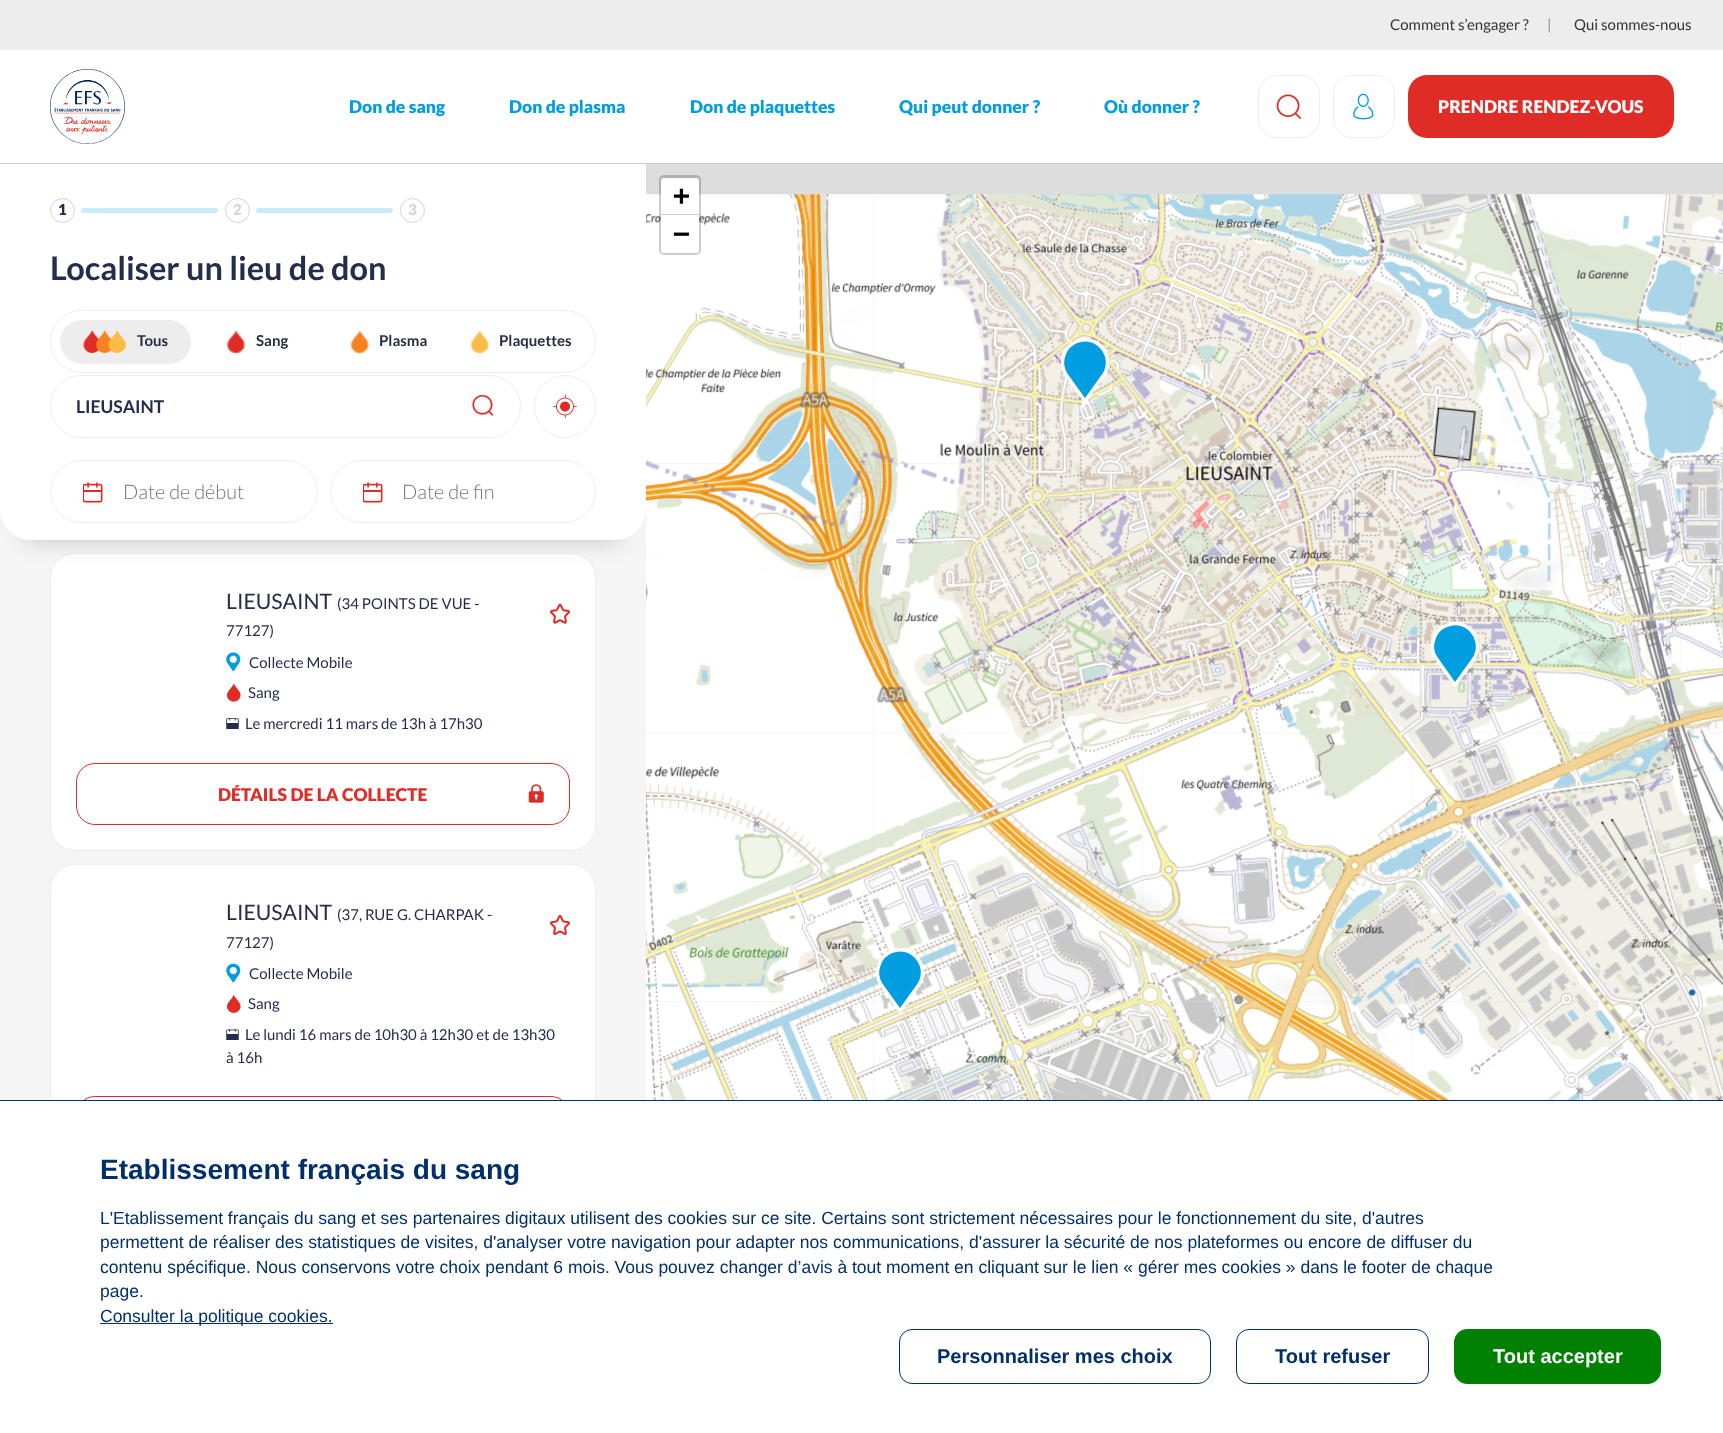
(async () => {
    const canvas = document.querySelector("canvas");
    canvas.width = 1723;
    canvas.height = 1433;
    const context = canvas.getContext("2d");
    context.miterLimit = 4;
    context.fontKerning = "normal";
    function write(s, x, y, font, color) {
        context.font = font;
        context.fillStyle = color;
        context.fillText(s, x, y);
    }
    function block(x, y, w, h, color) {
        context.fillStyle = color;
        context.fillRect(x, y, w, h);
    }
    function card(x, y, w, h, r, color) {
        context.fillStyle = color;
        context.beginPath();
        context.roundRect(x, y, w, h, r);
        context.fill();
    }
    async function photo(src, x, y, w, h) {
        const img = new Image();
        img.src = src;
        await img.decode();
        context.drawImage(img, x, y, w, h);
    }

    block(0, 0, 1723, 1433, "rgb(245, 245, 245)");
    block(0, 0, 1723, 50, "rgb(237, 237, 237)");
    write("Comment s’engager ?", 1390, 30, "15px Lato", "rgb(51, 51, 51)");
    write("|", 1547, 30, "15px Lato", "rgb(137, 141, 158)");
    write("Qui sommes-nous", 1574, 30, "15px Lato", "rgb(51, 51, 51)");
    block(0, 50, 1723, 113, "rgb(255, 255, 255)");
    context.beginPath();
    context.roundRect(50.5, 553.5, 545, 297, 24.5);
    context.fill();
    context.strokeStyle = "rgb(237, 237, 237)";
    context.stroke();
    block(646, 164, 1077, 936, "rgb(221, 221, 221)");
    await photo("media/27.png", 1142, 463, 270, 270);
    await photo("media/32.png", 1142, 732, 270, 270);
    await photo("media/26.png", 873, 463, 270, 270);
    await photo("media/28.png", 1411, 463, 270, 270);
    await photo("media/22.png", 1142, 194, 270, 270);
    await photo("media/21.png", 873, 194, 270, 270);
    await photo("media/31.png", 873, 732, 270, 270);
    await photo("media/25.png", 646, 463, 228, 270);
    await photo("media/20.png", 646, 194, 228, 270);
    context.beginPath();
    context.roundRect(660.5, 176.5, 39, 77, 3.5);
    context.strokeStyle = "rgba(0, 0, 0, 0.2)";
    context.lineWidth = 3;
    context.stroke();
    context.fillStyle = "rgba(0, 0, 0, 0.2)";
    context.filter = "blur(12.5px)";
    context.beginPath();
    context.roundRect(25, 213, 596, 327, 6);
    context.fill();
    context.filter = "none";
    context.fillStyle = "rgb(255, 255, 255)";
    context.beginPath();
    context.roundRect(0, 163, 646, 377, [0, 0, 31, 31]);
    context.fill();
    block(0, 163, 1723, 1, "rgb(204, 204, 204)");
    await photo("media/1.png", 50, 69, 75, 75);
    write("Don de sang", 349, 113, "900 17.5px Lato", "rgb(0, 157, 224)");
    write("Don de plasma", 509, 113, "900 17.5px Lato", "rgb(0, 157, 224)");
    write("Don de plaquettes", 690, 113, "900 17.5px Lato", "rgb(0, 157, 224)");
    write("Qui peut donner ?", 899, 113, "900 17.5px Lato", "rgb(0, 157, 224)");
    write("Où donner ?", 1104, 113, "900 17.5px Lato", "rgb(0, 157, 224)");
    context.beginPath();
    context.roundRect(1258.5, 75.5, 61, 62, 18.5);
    context.strokeStyle = "rgb(237, 237, 237)";
    context.lineWidth = 1;
    context.stroke();
    await photo("media/2.png", 1276, 94, 25, 25);
    context.beginPath();
    context.roundRect(1333.5, 75.5, 61, 62, 18.5);
    context.stroke();
    await photo("media/3.png", 1353, 93, 21, 27);
    card(1408, 75, 266, 63, 19, "rgb(223, 44, 38)");
    write("PRENDRE RENDEZ-VOUS", 1438, 113, "900 17.5px Lato", "rgb(255, 255, 255)");
    context.beginPath();
    context.arc(62.5, 210.5, 12, 0, Math.PI * 2);
    context.strokeStyle = "rgb(211, 213, 220)";
    context.stroke();
    write("1", 58, 215, "900 15px Lato", "rgb(37, 45, 78)");
    card(81, 208, 137, 5, 2.5, "rgb(204, 235, 249)");
    context.beginPath();
    context.arc(237.5, 210.5, 12, 0, Math.PI * 2);
    context.stroke();
    write("2", 233, 215, "900 15px Lato", "rgb(211, 213, 220)");
    card(256, 208, 137, 5, 2.5, "rgb(204, 235, 249)");
    context.beginPath();
    context.arc(412.5, 210.5, 12, 0, Math.PI * 2);
    context.stroke();
    write("3", 408, 215, "900 15px Lato", "rgb(211, 213, 220)");
    write("Localiser un lieu de don", 50, 280, "bold 32.5px Lato", "rgb(37, 45, 78)");
    context.beginPath();
    context.roundRect(50.5, 310.5, 545, 62, 31);
    context.strokeStyle = "rgb(237, 237, 237)";
    context.stroke();
    card(60, 320, 131, 44, 22, "rgb(237, 237, 237)");
    await photo("media/4.png", 83, 330, 44, 23);
    write("Tous", 137, 346, "bold 15px Lato", "rgb(37, 45, 66)");
    await photo("media/5.png", 226, 329, 20, 25);
    write("Sang", 256, 346, "bold 15px Lato", "rgb(37, 45, 66)");
    await photo("media/6.png", 350, 329, 20, 25);
    write("Plasma", 379, 346, "bold 15px Lato", "rgb(37, 45, 66)");
    await photo("media/7.png", 470, 329, 20, 25);
    write("Plaquettes", 499, 346, "bold 15px Lato", "rgb(37, 45, 66)");
    await photo("media/8.png", 83, 482, 20, 21);
    context.beginPath();
    context.roundRect(50.5, 460.5, 267, 62, 31);
    context.stroke();
    write("Date de début", 123, 499, "300 20px Lato", "rgb(117, 117, 117)");
    await photo("media/8.png", 363, 482, 20, 21);
    context.beginPath();
    context.roundRect(330.5, 460.5, 265, 62, 31);
    context.stroke();
    write("Date de fin", 402, 499, "300 20px Lato", "rgb(117, 117, 117)");
    context.beginPath();
    context.roundRect(50.5, 375.5, 470, 62, 31);
    context.stroke();
    write("LIEUSAINT", 76, 413, "bold 17.5px Lato", "rgb(37, 45, 78)");
    await photo("media/9.png", 472, 394, 22, 22);
    await photo("media/10.png", 553, 394, 24, 24);
    context.beginPath();
    context.roundRect(534.5, 375.5, 61, 62, 30.5);
    context.stroke();
    write("LIEUSAINT", 226, 609, "21.25px Lato", "rgb(37, 45, 78)");
    write("(34 POINTS DE VUE -", 337, 609, "15px Lato", "rgb(37, 45, 78)");
    write("77127)", 226, 636, "15px Lato", "rgb(37, 45, 78)");
    await photo("media/11.png", 550, 603, 20, 21);
    await photo("media/12.png", 226, 652, 15, 20);
    write("Collecte Mobile", 249, 668, "15px Lato", "rgb(37, 45, 78)");
    await photo("media/13.png", 227, 683, 14, 19);
    write("Sang", 248, 698, "15px Lato", "rgb(37, 45, 78)");
    await photo("media/14.png", 226, 718, 13, 11);
    write("Le mercredi 11 mars de 13h à 17h30", 245, 729, "15px Lato", "rgb(37, 45, 78)");
    context.beginPath();
    context.roundRect(76.5, 763.5, 493, 61, 18.5);
    context.strokeStyle = "rgb(223, 44, 38)";
    context.stroke();
    write("DÉTAILS DE LA COLLECTE", 218, 801, "900 17.5px Lato", "rgb(223, 44, 38)");
    await photo("media/15.png", 528, 784, 16, 19);
    context.fillStyle = "rgb(255, 255, 255)";
    context.beginPath();
    context.roundRect(50.5, 864.5, 545, 320, 24.5);
    context.fill();
    context.strokeStyle = "rgb(237, 237, 237)";
    context.stroke();
    write("LIEUSAINT", 226, 920, "21.25px Lato", "rgb(37, 45, 78)");
    write("(37, RUE G. CHARPAK -", 337, 920, "15px Lato", "rgb(37, 45, 78)");
    write("77127)", 226, 948, "15px Lato", "rgb(37, 45, 78)");
    await photo("media/16.png", 550, 915, 20, 20);
    await photo("media/17.png", 226, 963, 15, 20);
    write("Collecte Mobile", 249, 979, "15px Lato", "rgb(37, 45, 78)");
    await photo("media/18.png", 227, 994, 14, 19);
    write("Sang", 248, 1009, "15px Lato", "rgb(37, 45, 78)");
    await photo("media/19.png", 226, 1029, 13, 11);
    write("Le lundi 16 mars de 10h30 à 12h30 et de 13h30", 245, 1040, "15px Lato", "rgb(37, 45, 78)");
    write("à 16h", 226, 1063, "15px Lato", "rgb(37, 45, 78)");
    context.beginPath();
    context.roundRect(76.5, 1096.5, 493, 62, 18.5);
    context.strokeStyle = "rgb(223, 44, 38)";
    context.stroke();
    context.fillStyle = "rgb(255, 255, 255)";
    context.beginPath();
    context.roundRect(661, 178, 38, 37, [2.5, 2.5, 0, 0]);
    context.fill();
    block(661, 214, 38, 1, "rgb(204, 204, 204)");
    write("+", 673, 205, "bold 28px DejaVu Sans Mono", "rgb(0, 0, 0)");
    context.fillStyle = "rgb(255, 255, 255)";
    context.beginPath();
    context.roundRect(661, 215, 38, 38, [0, 0, 2.5, 2.5]);
    context.fill();
    write("−", 673, 243, "bold 28px DejaVu Sans Mono", "rgb(0, 0, 0)");
    await photo("media/23.png", 1411, 194, 270, 270);
    await photo("media/33.png", 1411, 732, 270, 270);
    await photo("media/29.png", 1680, 463, 43, 270);
    await photo("media/24.png", 1680, 194, 43, 270);
    await photo("media/37.png", 1142, 1001, 270, 99);
    await photo("media/36.png", 873, 1001, 270, 99);
    await photo("media/30.png", 646, 732, 228, 270);
    await photo("media/38.png", 1411, 1001, 270, 99);
    await photo("media/34.png", 1680, 732, 43, 270);
    await photo("media/35.png", 646, 1001, 228, 99);
    await photo("media/39.png", 1680, 1001, 43, 99);
    context.fillStyle = "rgb(0, 157, 224)";
    context.beginPath();
    context.moveTo(1104, 375);
    context.bezierCurveTo(1116, 357, 1097, 333, 1076, 342);
    context.bezierCurveTo(1071, 344, 1067, 348, 1064, 353);
    context.bezierCurveTo(1061, 360, 1062, 368, 1066, 374);
    context.lineTo(1085, 401);
    context.closePath();
    context.fill();
    context.beginPath();
    context.moveTo(1104, 374.5);
    context.bezierCurveTo(1115.5, 356.5, 1097, 333, 1076.5, 341.5);
    context.bezierCurveTo(1071, 344, 1066.5, 348, 1064.5, 353.5);
    context.bezierCurveTo(1061.5, 360, 1062, 368, 1066, 374.5);
    context.lineTo(1085, 401);
    context.closePath();
    context.strokeStyle = "rgb(255, 255, 255)";
    context.lineWidth = 3.4;
    context.lineJoin = "round";
    context.stroke();
    context.beginPath();
    context.moveTo(1474, 658);
    context.bezierCurveTo(1486, 640, 1467, 617, 1446, 625);
    context.bezierCurveTo(1441, 628, 1437, 632, 1434, 637);
    context.bezierCurveTo(1431, 644, 1432, 652, 1436, 658);
    context.lineTo(1455, 685);
    context.closePath();
    context.fill();
    context.beginPath();
    context.moveTo(1474, 658.5);
    context.bezierCurveTo(1485.5, 640.5, 1467, 616.5, 1446.5, 625.5);
    context.bezierCurveTo(1441, 627.5, 1436.5, 632, 1434.5, 637);
    context.bezierCurveTo(1431.5, 644, 1432, 652, 1436, 658);
    context.lineTo(1455, 685);
    context.closePath();
    context.stroke();
    context.beginPath();
    context.moveTo(919, 985);
    context.bezierCurveTo(931, 967, 912, 943, 891, 952);
    context.bezierCurveTo(886, 954, 882, 958, 879, 963);
    context.bezierCurveTo(876, 970, 877, 978, 881, 984);
    context.lineTo(900, 1011);
    context.closePath();
    context.fill();
    context.beginPath();
    context.moveTo(919, 984.5);
    context.bezierCurveTo(930.5, 966.5, 912, 943, 891.5, 951.5);
    context.bezierCurveTo(886, 954, 881.5, 958, 879.5, 963.5);
    context.bezierCurveTo(876.5, 970, 877, 978, 881, 984.5);
    context.lineTo(900, 1011);
    context.closePath();
    context.stroke();
    block(0, 1101, 1723, 332, "rgb(255, 255, 255)");
    block(0, 1100, 1723, 1, "rgb(0, 47, 108)");
    write("Etablissement français du sang", 100, 1179, "bold 28px Liberation Sans", "rgb(0, 47, 108)");
    write("L'Etablissement français du sang et ses partenaires digitaux utilisent des cookies sur ce site. Certains sont strictement nécessaires pour le fonctionnement du site, d'autres", 100, 1224, "17.5px Liberation Sans", "rgb(0, 47, 108)");
    write("permettent de réaliser des statistiques de visites, d'analyser votre navigation pour adapter nos communications, d'assurer la sécurité de nos plateformes ou encore de diffuser du", 100, 1248, "17.5px Liberation Sans", "rgb(0, 47, 108)");
    write("contenu spécifique. Nous conservons votre choix pendant 6 mois. Vous pouvez changer d’avis à tout moment en cliquant sur le lien « gérer mes cookies » dans le footer de chaque", 100, 1273, "17.5px Liberation Sans", "rgb(0, 47, 108)");
    write("page.", 100, 1297, "17.5px Liberation Sans", "rgb(0, 47, 108)");
    block(100, 1323, 233, 1, "rgb(0, 47, 108)");
    write("Consulter la politique cookies.", 100, 1322, "17.5px Liberation Sans", "rgb(0, 47, 108)");
    context.beginPath();
    context.roundRect(899.5, 1329.5, 311, 54, 12.5);
    context.strokeStyle = "rgb(0, 47, 108)";
    context.lineWidth = 1;
    context.lineJoin = "miter";
    context.stroke();
    write("Personnaliser mes choix", 937, 1363, "bold 20px Liberation Sans", "rgb(0, 47, 108)");
    context.beginPath();
    context.roundRect(1236.5, 1329.5, 192, 54, 12.5);
    context.stroke();
    write("Tout refuser", 1275, 1363, "bold 20px Liberation Sans", "rgb(0, 47, 108)");
    context.fillStyle = "rgb(0, 128, 0)";
    context.beginPath();
    context.roundRect(1454.5, 1329.5, 206, 54, 12.5);
    context.fill();
    context.strokeStyle = "rgb(0, 128, 0)";
    context.stroke();
    write("Tout accepter", 1493, 1363, "bold 20px Liberation Sans", "rgb(255, 255, 255)");
})();
